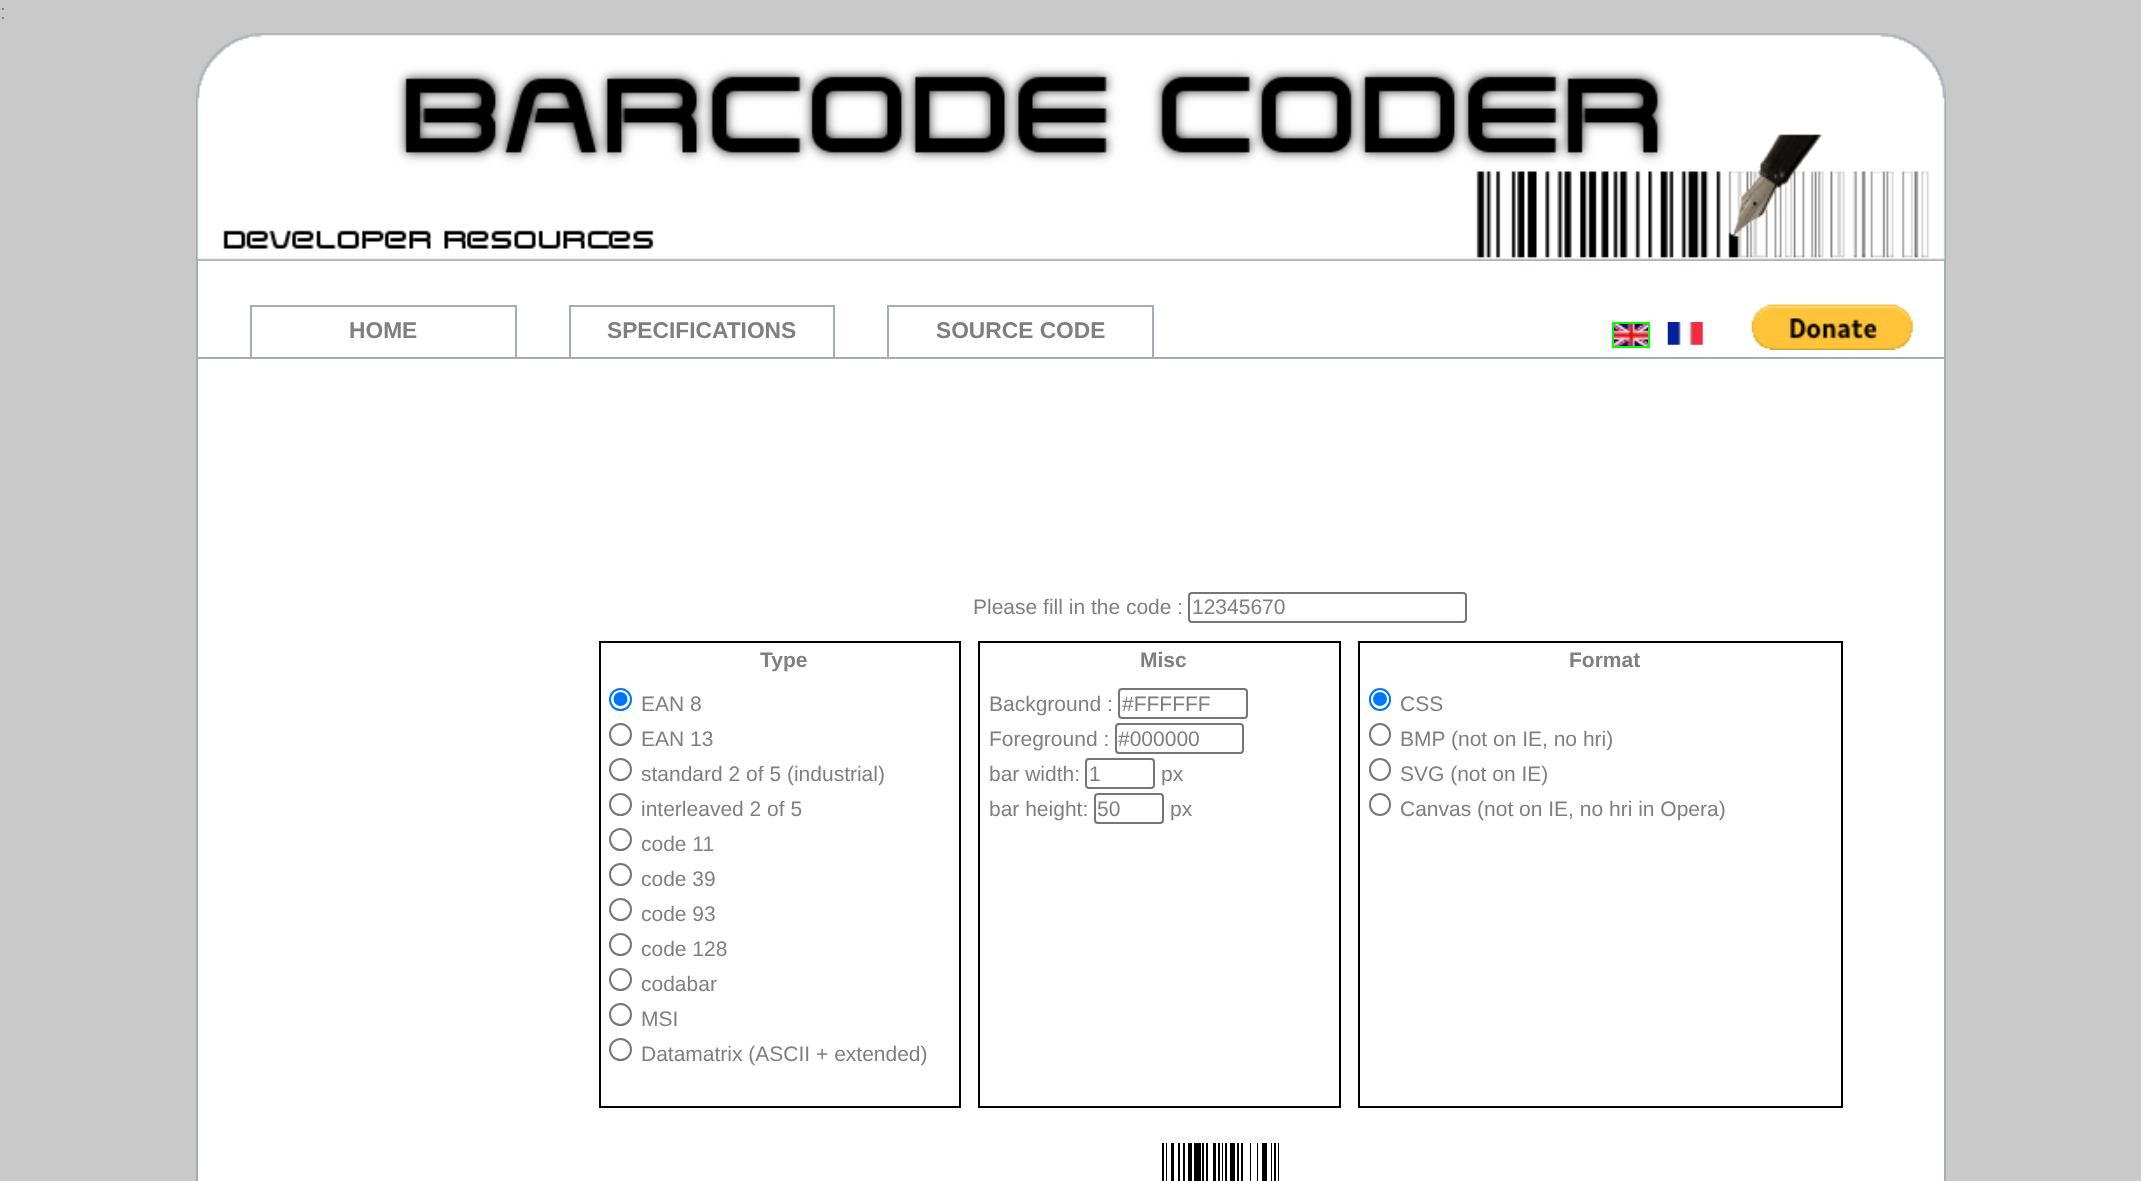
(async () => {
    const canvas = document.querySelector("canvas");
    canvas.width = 2141;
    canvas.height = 1181;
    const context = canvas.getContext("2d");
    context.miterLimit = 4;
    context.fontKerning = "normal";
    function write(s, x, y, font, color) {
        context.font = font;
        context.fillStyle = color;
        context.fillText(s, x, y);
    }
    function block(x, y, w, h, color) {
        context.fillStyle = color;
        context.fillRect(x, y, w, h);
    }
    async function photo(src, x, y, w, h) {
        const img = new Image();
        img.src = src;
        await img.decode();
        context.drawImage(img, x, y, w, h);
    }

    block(0, 0, 2141, 1181, "rgb(201, 201, 201)");
    write(":", 0, 19, "21px Liberation Sans", "rgb(127, 127, 127)");
    await photo("media/1.png", 196, 33, 1750, 228);
    block(198, 261, 1746, 920, "rgb(255, 255, 255)");
    block(1944, 261, 2, 920, "rgb(163, 173, 182)");
    block(196, 261, 2, 920, "rgb(163, 173, 182)");
    block(198, 357, 1746, 2, "rgb(163, 173, 182)");
    block(250, 305, 266, 2, "rgb(163, 173, 182)");
    block(515, 305, 2, 52, "rgb(163, 173, 182)");
    block(250, 305, 2, 52, "rgb(163, 173, 182)");
    write("HOME", 349, 338, "bold 22.75px Liberation Sans", "rgb(127, 127, 127)");
    block(569, 305, 266, 2, "rgb(163, 173, 182)");
    block(833, 305, 2, 52, "rgb(163, 173, 182)");
    block(569, 305, 2, 52, "rgb(163, 173, 182)");
    write("SPECIFICATIONS", 607, 338, "bold 22.75px Liberation Sans", "rgb(127, 127, 127)");
    block(887, 305, 266, 2, "rgb(163, 173, 182)");
    block(1152, 305, 2, 52, "rgb(163, 173, 182)");
    block(887, 305, 2, 52, "rgb(163, 173, 182)");
    write("SOURCE CODE", 936, 338, "bold 22.75px Liberation Sans", "rgb(127, 127, 127)");
    await photo("media/2.png", 1614, 324, 34, 22);
    context.strokeStyle = "rgb(0, 255, 0)";
    context.lineWidth = 2;
    context.strokeRect(1613, 323, 36, 24);
    await photo("media/3.png", 1667, 322, 36, 23);
    await photo("media/4.png", 1751, 304, 162, 46);
    write("Please fill in the code :", 973, 614, "21px Liberation Sans", "rgb(127, 127, 127)");
    context.beginPath();
    context.roundRect(1189, 593, 277, 29, 3);
    context.strokeStyle = "rgb(118, 118, 118)";
    context.stroke();
    write("12345670", 1192, 614, "21px Liberation Sans", "rgb(127, 127, 127)");
    context.strokeStyle = "rgb(0, 0, 0)";
    context.strokeRect(600, 642, 360, 465);
    write("Type", 760, 667, "bold 21px Liberation Sans", "rgb(127, 127, 127)");
    context.beginPath();
    context.arc(620.5, 699.5, 10.5, 0, Math.PI * 2);
    context.strokeStyle = "rgb(0, 117, 255)";
    context.stroke();
    context.fillStyle = "rgb(0, 117, 255)";
    context.beginPath();
    context.arc(620.5, 699, 7, 0, Math.PI * 2);
    context.fill();
    write("EAN 8", 641, 711, "21px Liberation Sans", "rgb(127, 127, 127)");
    context.beginPath();
    context.arc(620.5, 734.5, 10.5, 0, Math.PI * 2);
    context.strokeStyle = "rgb(118, 118, 118)";
    context.stroke();
    write("EAN 13", 641, 746, "21px Liberation Sans", "rgb(127, 127, 127)");
    context.beginPath();
    context.arc(620.5, 769.5, 10.5, 0, Math.PI * 2);
    context.stroke();
    write("standard 2 of 5 (industrial)", 641, 781, "21px Liberation Sans", "rgb(127, 127, 127)");
    context.beginPath();
    context.arc(620.5, 804.5, 10.5, 0, Math.PI * 2);
    context.stroke();
    write("interleaved 2 of 5", 641, 816, "21px Liberation Sans", "rgb(127, 127, 127)");
    context.beginPath();
    context.arc(620.5, 839.5, 10.5, 0, Math.PI * 2);
    context.stroke();
    write("code 11", 641, 851, "21px Liberation Sans", "rgb(127, 127, 127)");
    context.beginPath();
    context.arc(620.5, 874.5, 10.5, 0, Math.PI * 2);
    context.stroke();
    write("code 39", 641, 886, "21px Liberation Sans", "rgb(127, 127, 127)");
    context.beginPath();
    context.arc(620.5, 909.5, 10.5, 0, Math.PI * 2);
    context.stroke();
    write("code 93", 641, 921, "21px Liberation Sans", "rgb(127, 127, 127)");
    context.beginPath();
    context.arc(620.5, 944.5, 10.5, 0, Math.PI * 2);
    context.stroke();
    write("code 128", 641, 956, "21px Liberation Sans", "rgb(127, 127, 127)");
    context.beginPath();
    context.arc(620.5, 979.5, 10.5, 0, Math.PI * 2);
    context.stroke();
    write("codabar", 641, 991, "21px Liberation Sans", "rgb(127, 127, 127)");
    context.beginPath();
    context.arc(620.5, 1014.5, 10.5, 0, Math.PI * 2);
    context.stroke();
    write("MSI", 641, 1026, "21px Liberation Sans", "rgb(127, 127, 127)");
    context.beginPath();
    context.arc(620.5, 1049.5, 10.5, 0, Math.PI * 2);
    context.stroke();
    write("Datamatrix (ASCII + extended)", 641, 1061, "21px Liberation Sans", "rgb(127, 127, 127)");
    context.strokeStyle = "rgb(0, 0, 0)";
    context.strokeRect(979, 642, 361, 465);
    write("Misc", 1140, 667, "bold 21px Liberation Sans", "rgb(127, 127, 127)");
    write("Background :", 989, 711, "21px Liberation Sans", "rgb(127, 127, 127)");
    context.beginPath();
    context.roundRect(1119, 689, 128, 29, 3);
    context.strokeStyle = "rgb(118, 118, 118)";
    context.stroke();
    write("#FFFFFF", 1122, 711, "21px Liberation Sans", "rgb(127, 127, 127)");
    write("Foreground :", 989, 746, "21px Liberation Sans", "rgb(127, 127, 127)");
    context.beginPath();
    context.roundRect(1116, 724, 127, 29, 3);
    context.stroke();
    write("#000000", 1118, 746, "21px Liberation Sans", "rgb(127, 127, 127)");
    write("bar width:", 989, 781, "21px Liberation Sans", "rgb(127, 127, 127)");
    context.beginPath();
    context.roundRect(1086, 759, 68, 29, 3);
    context.stroke();
    write("1", 1089, 781, "21px Liberation Sans", "rgb(127, 127, 127)");
    write("px", 1161, 781, "21px Liberation Sans", "rgb(127, 127, 127)");
    write("bar height:", 989, 816, "21px Liberation Sans", "rgb(127, 127, 127)");
    context.beginPath();
    context.roundRect(1095, 794, 68, 29, 3);
    context.stroke();
    write("50", 1097, 816, "21px Liberation Sans", "rgb(127, 127, 127)");
    write("px", 1170, 816, "21px Liberation Sans", "rgb(127, 127, 127)");
    context.strokeStyle = "rgb(0, 0, 0)";
    context.strokeRect(1359, 642, 483, 465);
    write("Format", 1569, 667, "bold 21px Liberation Sans", "rgb(127, 127, 127)");
    context.beginPath();
    context.roundRect(1370, 689, 20, 21, 10);
    context.strokeStyle = "rgb(0, 117, 255)";
    context.stroke();
    context.fillStyle = "rgb(0, 117, 255)";
    context.beginPath();
    context.arc(1380, 699, 7, 0, Math.PI * 2);
    context.fill();
    write("CSS", 1400, 711, "21px Liberation Sans", "rgb(127, 127, 127)");
    context.beginPath();
    context.roundRect(1370, 724, 20, 21, 10);
    context.strokeStyle = "rgb(118, 118, 118)";
    context.stroke();
    write("BMP (not on IE, no hri)", 1400, 746, "21px Liberation Sans", "rgb(127, 127, 127)");
    context.beginPath();
    context.roundRect(1370, 759, 20, 21, 10);
    context.stroke();
    write("SVG (not on IE)", 1400, 781, "21px Liberation Sans", "rgb(127, 127, 127)");
    context.beginPath();
    context.roundRect(1370, 794, 20, 21, 10);
    context.stroke();
    write("Canvas (not on IE, no hri in Opera)", 1400, 816, "21px Liberation Sans", "rgb(127, 127, 127)");
    block(1162, 1143, 2, 38, "rgb(0, 0, 0)");
    block(1166, 1143, 1, 38, "rgb(0, 0, 0)");
    block(1171, 1143, 3, 38, "rgb(0, 0, 0)");
    block(1178, 1143, 2, 38, "rgb(0, 0, 0)");
    block(1183, 1143, 2, 38, "rgb(0, 0, 0)");
    block(1188, 1143, 4, 38, "rgb(0, 0, 0)");
    block(1194, 1143, 7, 38, "rgb(0, 0, 0)");
    block(1202, 1143, 2, 38, "rgb(0, 0, 0)");
    block(1206, 1143, 2, 38, "rgb(0, 0, 0)");
    block(1213, 1143, 3, 38, "rgb(0, 0, 0)");
    block(1218, 1143, 2, 38, "rgb(0, 0, 0)");
    block(1222, 1143, 1, 38, "rgb(0, 0, 0)");
    block(1225, 1143, 2, 38, "rgb(0, 0, 0)");
    block(1230, 1143, 5, 38, "rgb(0, 0, 0)");
    block(1237, 1143, 2, 38, "rgb(0, 0, 0)");
    block(1241, 1143, 2, 38, "rgb(0, 0, 0)");
    block(1250, 1143, 1, 38, "rgb(0, 0, 0)");
    block(1257, 1143, 1, 38, "rgb(0, 0, 0)");
    block(1262, 1143, 5, 38, "rgb(0, 0, 0)");
    block(1271, 1143, 1, 38, "rgb(0, 0, 0)");
    block(1274, 1143, 2, 38, "rgb(0, 0, 0)");
    block(1278, 1143, 1, 38, "rgb(0, 0, 0)");
})();
